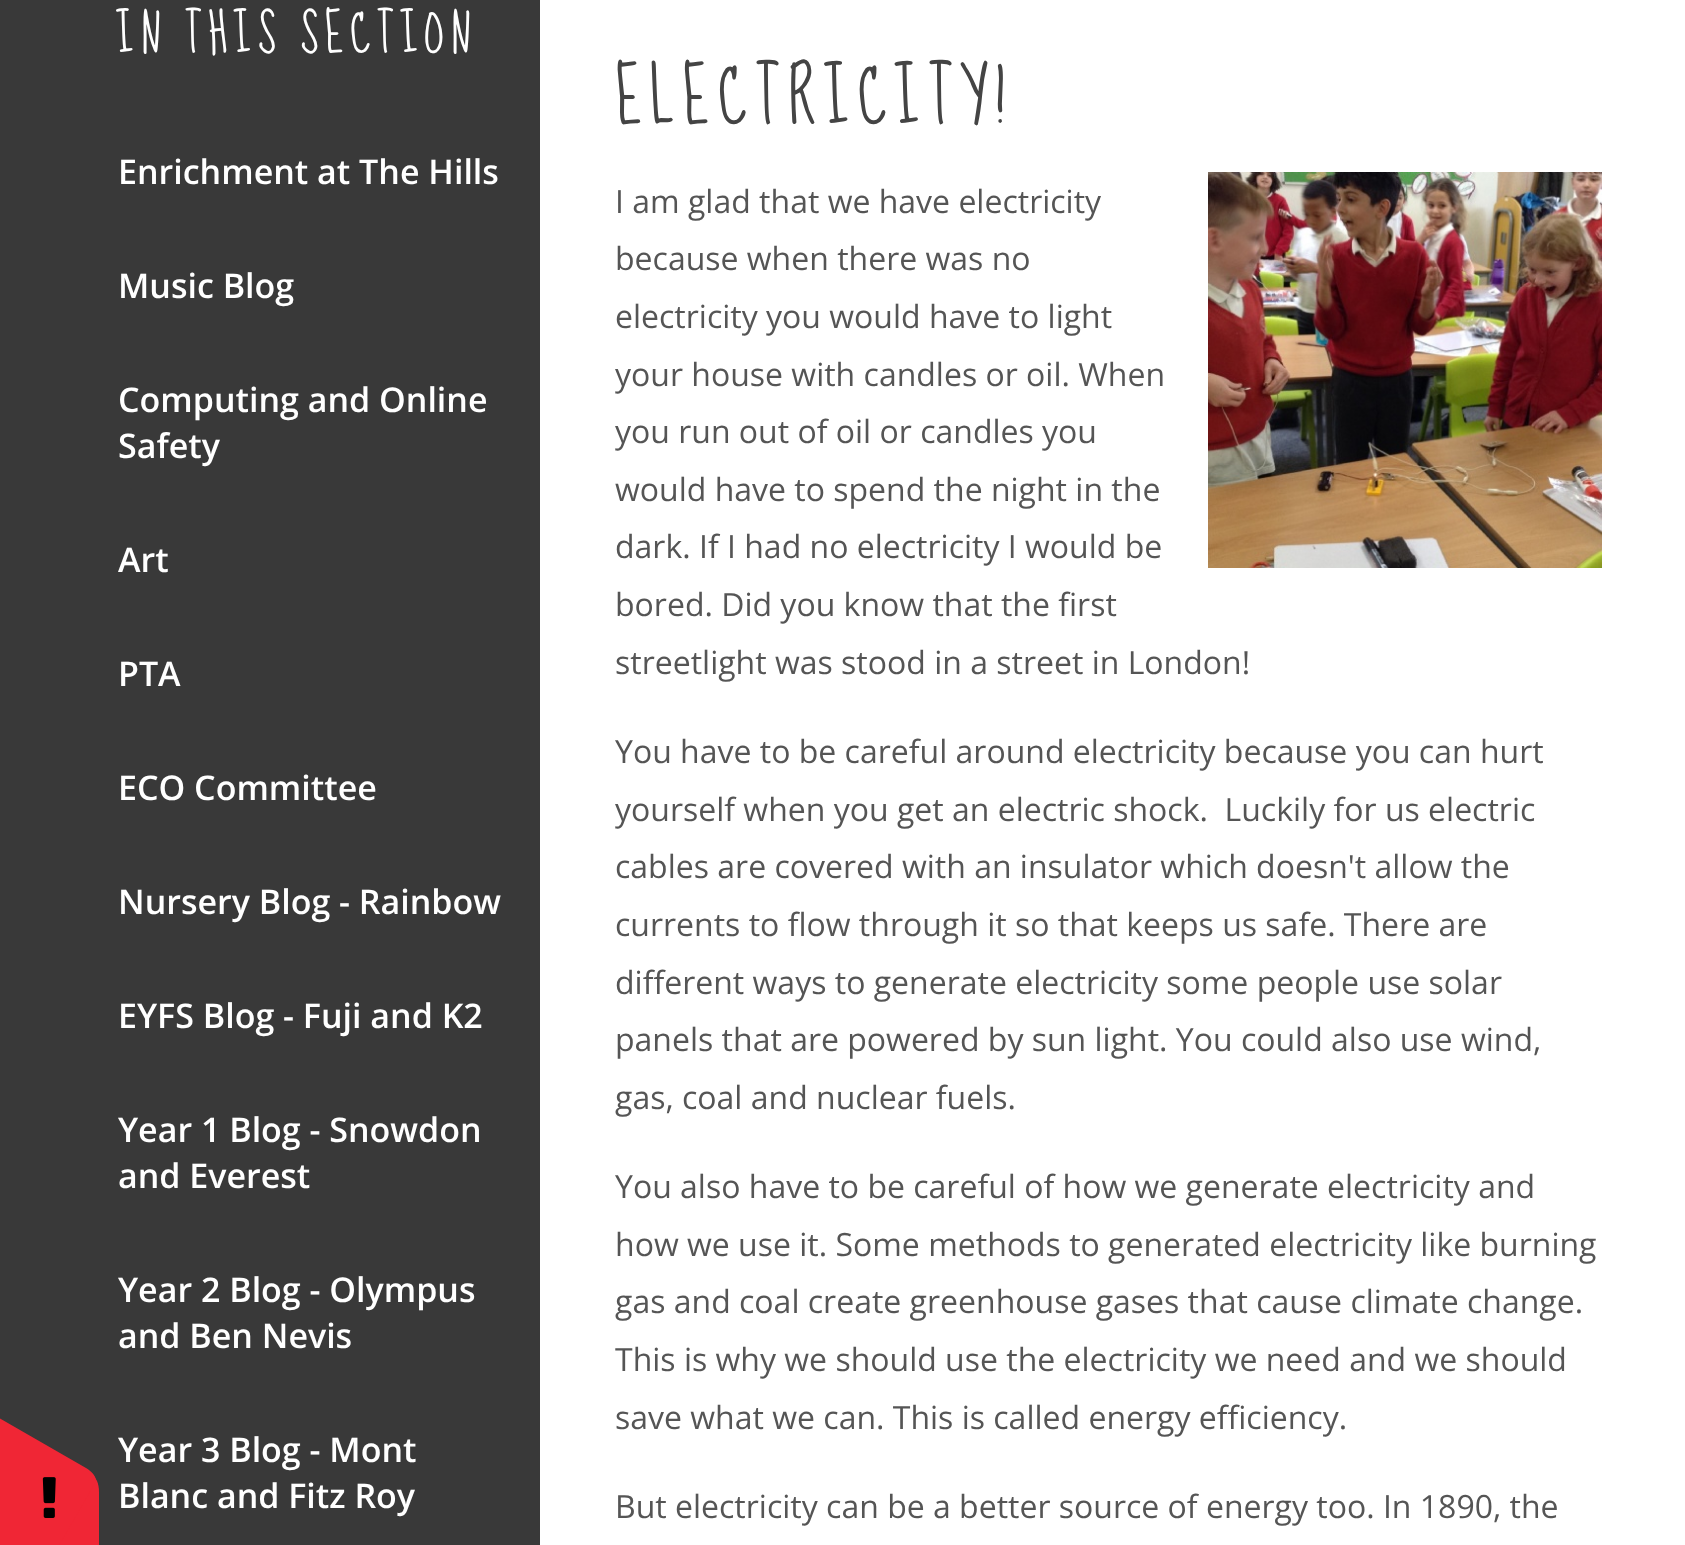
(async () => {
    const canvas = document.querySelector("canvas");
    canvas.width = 1685;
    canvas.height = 1545;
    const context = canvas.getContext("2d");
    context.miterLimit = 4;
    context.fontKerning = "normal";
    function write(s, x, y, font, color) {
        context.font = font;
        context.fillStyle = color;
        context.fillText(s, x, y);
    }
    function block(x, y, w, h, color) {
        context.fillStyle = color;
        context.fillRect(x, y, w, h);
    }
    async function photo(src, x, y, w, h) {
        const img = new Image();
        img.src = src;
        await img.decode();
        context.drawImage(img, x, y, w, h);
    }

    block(0, 0, 1685, 1545, "rgb(255, 255, 255)");
    block(0, 0, 540, 1545, "rgb(57, 57, 57)");
    context.fillStyle = "rgb(240, 38, 53)";
    context.beginPath();
    context.moveTo(99, 1492);
    context.lineTo(99, 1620);
    context.bezierCurveTo(99, 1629, 96, 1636, 91, 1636);
    context.lineTo(-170, 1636);
    context.bezierCurveTo(-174, 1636, -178, 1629, -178, 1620);
    context.lineTo(-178, 1492);
    context.bezierCurveTo(-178, 1483, -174, 1476, -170, 1476);
    context.lineTo(91, 1476);
    context.bezierCurveTo(96, 1476, 99, 1483, 99, 1492);
    context.closePath();
    context.fill();
    context.beginPath();
    context.moveTo(-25, 1404);
    context.lineTo(86, 1468);
    context.bezierCurveTo(93, 1472, 98, 1479, 95, 1483);
    context.lineTo(-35, 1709);
    context.bezierCurveTo(-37, 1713, -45, 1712, -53, 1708);
    context.lineTo(-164, 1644);
    context.bezierCurveTo(-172, 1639, -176, 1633, -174, 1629);
    context.lineTo(-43, 1403);
    context.bezierCurveTo(-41, 1399, -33, 1399, -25, 1404);
    context.closePath();
    context.fill();
    await photo("media/1.png", 42, 1477, 14, 41);
    context.letterSpacing = "6px";
    write("IN THIS SECTION", 116, 52, "48px Sue Ellen Francisco", "rgb(255, 255, 255)");
    context.letterSpacing = "0px";
    write("Enrichment at The Hills", 118, 184, "600 34px Open Sans", "rgb(255, 255, 255)");
    write("Music Blog", 118, 298, "600 34px Open Sans", "rgb(255, 255, 255)");
    write("Computing and Online", 118, 412, "600 34px Open Sans", "rgb(255, 255, 255)");
    write("Safety", 118, 458, "600 34px Open Sans", "rgb(255, 255, 255)");
    write("Art", 118, 572, "600 34px Open Sans", "rgb(255, 255, 255)");
    write("PTA", 118, 686, "600 34px Open Sans", "rgb(255, 255, 255)");
    write("ECO Committee", 118, 800, "600 34px Open Sans", "rgb(255, 255, 255)");
    write("Nursery Blog - Rainbow", 118, 914, "600 34px Open Sans", "rgb(255, 255, 255)");
    write("EYFS Blog - Fuji and K2", 118, 1028, "600 34px Open Sans", "rgb(255, 255, 255)");
    write("Year 1 Blog - Snowdon", 118, 1142, "600 34px Open Sans", "rgb(255, 255, 255)");
    write("and Everest", 118, 1188, "600 34px Open Sans", "rgb(255, 255, 255)");
    write("Year 2 Blog - Olympus", 118, 1302, "600 34px Open Sans", "rgb(255, 255, 255)");
    write("and Ben Nevis", 118, 1348, "600 34px Open Sans", "rgb(255, 255, 255)");
    write("Year 3 Blog - Mont", 118, 1462, "600 34px Open Sans", "rgb(255, 255, 255)");
    write("Blanc and Fitz Roy", 118, 1508, "600 34px Open Sans", "rgb(255, 255, 255)");
    context.letterSpacing = "8px";
    write("ELECTRICITY!", 615, 123, "68px Sue Ellen Francisco", "rgb(68, 68, 68)");
    context.letterSpacing = "0px";
    write("I am glad that we have electricity", 615, 213, "32px Open Sans", "rgb(85, 85, 85)");
    write("because when there was no", 615, 270, "32px Open Sans", "rgb(85, 85, 85)");
    write("electricity you would have to light", 615, 328, "32px Open Sans", "rgb(85, 85, 85)");
    write("your house with candles or oil. When", 615, 386, "32px Open Sans", "rgb(85, 85, 85)");
    write("you run out of oil or candles you", 615, 443, "32px Open Sans", "rgb(85, 85, 85)");
    write("would have to spend the night in the", 615, 501, "32px Open Sans", "rgb(85, 85, 85)");
    write("dark. If I had no electricity I would be", 615, 558, "32px Open Sans", "rgb(85, 85, 85)");
    write("bored. Did you know that the first", 615, 616, "32px Open Sans", "rgb(85, 85, 85)");
    write("streetlight was stood in a street in London!", 615, 674, "32px Open Sans", "rgb(85, 85, 85)");
    await photo("media/2.png", 1208, 172, 394, 396);
    write("You have to be careful around electricity because you can hurt", 615, 763, "32px Open Sans", "rgb(85, 85, 85)");
    write("yourself when you get an electric shock.  Luckily for us electric", 615, 821, "32px Open Sans", "rgb(85, 85, 85)");
    write("cables are covered with an insulator which doesn't allow the", 615, 878, "32px Open Sans", "rgb(85, 85, 85)");
    write("currents to flow through it so that keeps us safe. There are", 615, 936, "32px Open Sans", "rgb(85, 85, 85)");
    write("different ways to generate electricity some people use solar", 615, 994, "32px Open Sans", "rgb(85, 85, 85)");
    write("panels that are powered by sun light. You could also use wind,", 615, 1051, "32px Open Sans", "rgb(85, 85, 85)");
    write("gas, coal and nuclear fuels.", 615, 1109, "32px Open Sans", "rgb(85, 85, 85)");
    write("You also have to be careful of how we generate electricity and", 615, 1198, "32px Open Sans", "rgb(85, 85, 85)");
    write("how we use it. Some methods to generated electricity like burning", 615, 1256, "32px Open Sans", "rgb(85, 85, 85)");
    write("gas and coal create greenhouse gases that cause climate change.", 615, 1313, "32px Open Sans", "rgb(85, 85, 85)");
    write("This is why we should use the electricity we need and we should", 615, 1371, "32px Open Sans", "rgb(85, 85, 85)");
    write("save what we can. This is called energy efficiency.", 615, 1429, "32px Open Sans", "rgb(85, 85, 85)");
    write("But electricity can be a better source of energy too. In 1890, the", 615, 1518, "32px Open Sans", "rgb(85, 85, 85)");
})();
